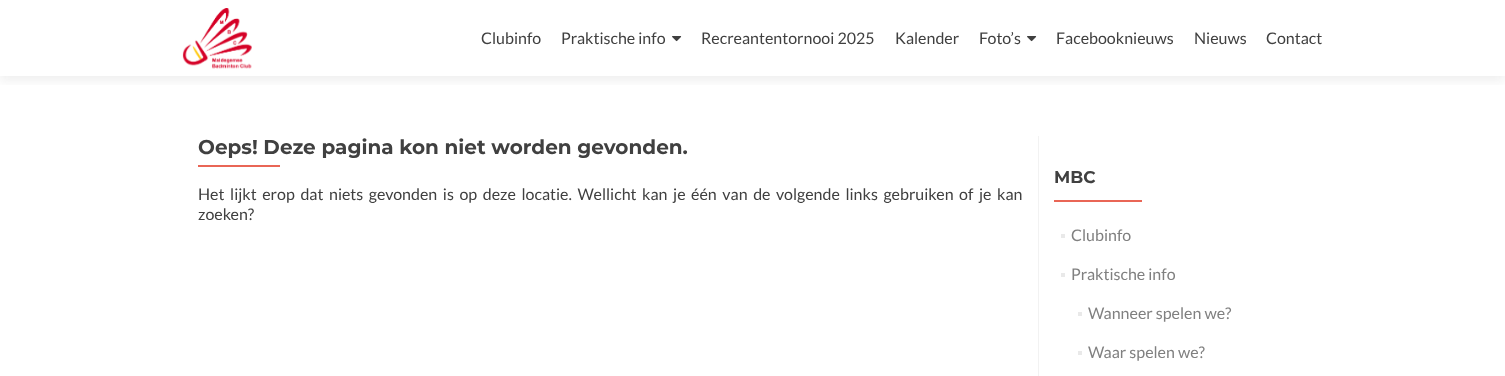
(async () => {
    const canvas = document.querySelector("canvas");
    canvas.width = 1505;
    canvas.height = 376;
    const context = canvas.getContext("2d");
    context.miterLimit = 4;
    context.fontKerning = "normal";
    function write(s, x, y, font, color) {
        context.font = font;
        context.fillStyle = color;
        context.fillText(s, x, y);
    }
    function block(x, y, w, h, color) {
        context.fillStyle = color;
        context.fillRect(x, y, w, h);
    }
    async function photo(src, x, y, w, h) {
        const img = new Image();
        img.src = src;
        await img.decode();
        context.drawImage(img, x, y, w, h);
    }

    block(0, 0, 1505, 376, "rgb(255, 255, 255)");
    context.save();
    context.beginPath();
    context.rect(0, 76, 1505, 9);
    context.clip();
    context.fillStyle = "rgba(50, 50, 50, 0.08)";
    context.filter = "blur(5.5px)";
    context.beginPath();
    context.rect(0, 5, 1505, 76);
    context.fill();
    context.filter = "none";
    context.restore();
    await photo("media/1.png", 182, 8, 70, 61);
    write("Clubinfo", 481, 44, "16px Lato", "rgb(64, 64, 64)");
    write("Praktische info", 561, 44, "16px Lato", "rgb(64, 64, 64)");
    await photo("media/2.png", 672, 36, 10, 6);
    write("Recreantentornooi 2025", 701, 44, "16px Lato", "rgb(64, 64, 64)");
    write("Kalender", 895, 44, "16px Lato", "rgb(64, 64, 64)");
    write("Foto’s", 979, 44, "16px Lato", "rgb(64, 64, 64)");
    await photo("media/2.png", 1027, 36, 10, 6);
    write("Facebooknieuws", 1056, 44, "16px Lato", "rgb(64, 64, 64)");
    write("Nieuws", 1194, 44, "16px Lato", "rgb(64, 64, 64)");
    write("Contact", 1266, 44, "16px Lato", "rgb(64, 64, 64)");
    write("Oeps! Deze pagina kon niet worden gevonden.", 198, 154, "bold 20px Montserrat", "rgb(64, 64, 64)");
    block(198, 165, 82, 2, "rgb(233, 102, 86)");
    context.wordSpacing = "2.5px";
    write("Het lijkt erop dat niets gevonden is op deze locatie. Wellicht kan je één van de volgende links gebruiken of je kan", 198, 200, "16px Lato", "rgb(64, 64, 64)");
    context.wordSpacing = "0px";
    write("zoeken?", 198, 220, "16px Lato", "rgb(64, 64, 64)");
    block(1038, 136, 1, 240, "rgb(242, 242, 242)");
    write("MBC", 1054, 183, "bold 17px Montserrat", "rgb(64, 64, 64)");
    block(1054, 200, 88, 2, "rgb(233, 102, 86)");
    block(1061, 234, 4, 4, "rgb(233, 233, 233)");
    write("Clubinfo", 1071, 241, "16px Lato", "rgb(128, 128, 128)");
    block(1061, 273, 4, 4, "rgb(233, 233, 233)");
    write("Praktische info", 1071, 280, "16px Lato", "rgb(128, 128, 128)");
    block(1078, 312, 4, 4, "rgb(233, 233, 233)");
    write("Wanneer spelen we?", 1088, 319, "16px Lato", "rgb(128, 128, 128)");
    block(1078, 351, 4, 4, "rgb(233, 233, 233)");
    write("Waar spelen we?", 1088, 358, "16px Lato", "rgb(128, 128, 128)");
})();
